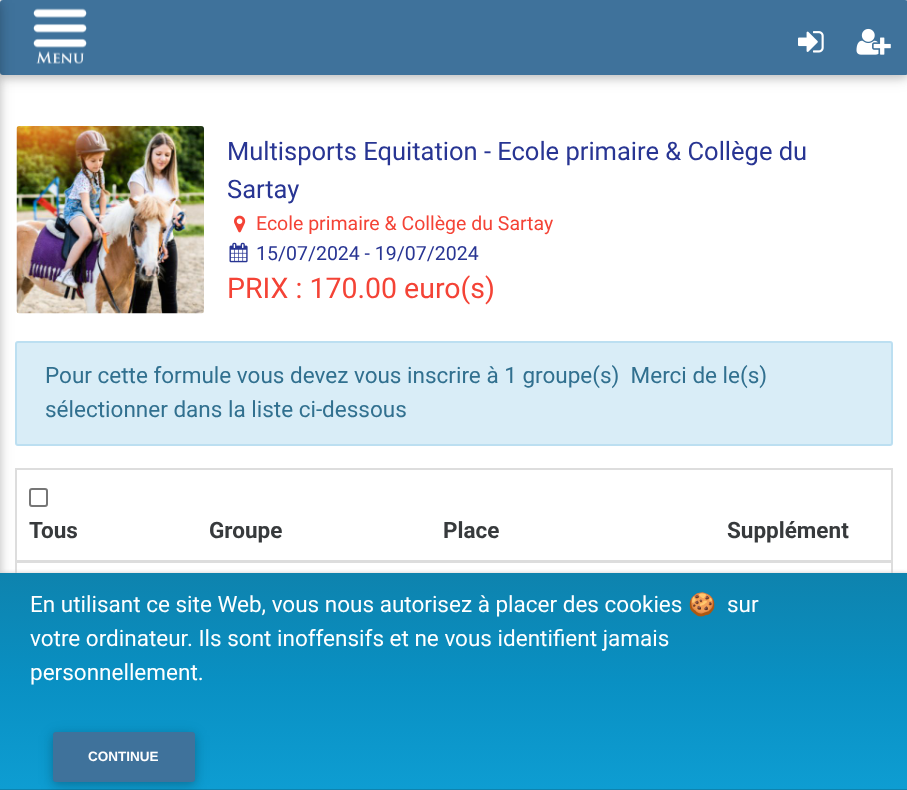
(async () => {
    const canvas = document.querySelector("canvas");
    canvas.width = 907;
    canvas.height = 790;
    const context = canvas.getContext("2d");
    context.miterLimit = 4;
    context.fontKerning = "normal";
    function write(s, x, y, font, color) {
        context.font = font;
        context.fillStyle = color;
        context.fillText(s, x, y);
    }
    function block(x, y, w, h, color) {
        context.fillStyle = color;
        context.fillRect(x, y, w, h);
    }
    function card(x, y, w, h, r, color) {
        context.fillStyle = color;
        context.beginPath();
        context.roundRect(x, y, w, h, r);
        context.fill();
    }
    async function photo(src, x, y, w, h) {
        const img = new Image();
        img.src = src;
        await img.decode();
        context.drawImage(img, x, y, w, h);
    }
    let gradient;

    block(0, 0, 907, 790, "rgb(255, 255, 255)");
    context.fillStyle = "rgba(0, 0, 0, 0.12)";
    context.filter = "blur(7.5px)";
    context.beginPath();
    context.roundRect(0, 3, 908, 75, 3);
    context.fill();
    context.filter = "none";
    context.fillStyle = "rgba(0, 0, 0, 0.16)";
    context.filter = "blur(4px)";
    context.beginPath();
    context.roundRect(0, 3, 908, 75, 3);
    context.fill();
    context.filter = "none";
    card(0, 0, 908, 75, 3, "rgb(63, 114, 155)");
    await photo("media/1.png", 33, 8, 54, 56);
    await photo("media/2.png", 798, 31, 26, 22);
    await photo("media/3.png", 856, 28, 35, 27);
    await photo("media/4.png", 16, 126, 188, 188);
    context.fillStyle = "rgb(217, 237, 247)";
    context.beginPath();
    context.roundRect(16, 342, 876, 103, 2);
    context.fill();
    context.strokeStyle = "rgb(188, 223, 241)";
    context.lineWidth = 2;
    context.stroke();
    context.strokeStyle = "rgb(221, 221, 221)";
    context.strokeRect(16, 469, 876, 214);
    block(17, 560, 874, 3, "rgb(221, 221, 221)");
    context.fillStyle = "rgba(0, 0, 0, 0.12)";
    context.filter = "blur(7.5px)";
    context.beginPath();
    context.rect(-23, 3, 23, 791);
    context.fill();
    context.filter = "none";
    context.fillStyle = "rgba(0, 0, 0, 0.16)";
    context.filter = "blur(4px)";
    context.beginPath();
    context.rect(-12, 3, 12, 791);
    context.fill();
    context.filter = "none";
    write("Multisports Equitation - Ecole primaire & Collège du", 227, 160, "25.5px Roboto", "rgb(40, 53, 147)");
    write("Sartay", 227, 198, "25.5px Roboto", "rgb(40, 53, 147)");
    await photo("media/5.png", 234, 215, 12, 18);
    write("Ecole primaire & Collège du Sartay", 256, 230, "19.5px Roboto", "rgb(244, 67, 54)");
    await photo("media/6.png", 229, 242, 19, 21);
    write("15/07/2024 - 19/07/2024", 256, 260, "19.5px Roboto", "rgb(40, 53, 147)");
    write("PRIX : 170.00 euro(s)", 227, 298, "28.5px Roboto", "rgb(244, 67, 54)");
    write("Pour cette formule vous devez vous inscrire à 1 groupe(s)  Merci de le(s)", 45, 383, "22.5px Roboto", "rgb(49, 112, 143)");
    write("sélectionner dans la liste ci-dessous", 45, 417, "22.5px Roboto", "rgb(49, 112, 143)");
    context.beginPath();
    context.roundRect(30, 489, 17, 17, 2);
    context.strokeStyle = "rgb(118, 118, 118)";
    context.stroke();
    write("Tous", 29, 538, "bold 22.5px Roboto", "rgb(55, 58, 60)");
    write("Groupe", 209, 538, "bold 22.5px Roboto", "rgb(55, 58, 60)");
    write("Place", 443, 538, "bold 22.5px Roboto", "rgb(55, 58, 60)");
    write("Supplément", 727, 538, "bold 22.5px Roboto", "rgb(55, 58, 60)");
    context.fillStyle = "rgb(204, 204, 204)";
    context.filter = "blur(2px)";
    context.beginPath();
    context.rect(0, 573, 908, 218);
    context.fill();
    context.filter = "none";
    gradient = context.createLinearGradient(454, 573, 454, 789);
    gradient.addColorStop(0, "rgb(14, 131, 174)");
    gradient.addColorStop(0.5, "rgb(9, 144, 195)");
    gradient.addColorStop(1, "rgb(14, 157, 210)");
    context.fillStyle = gradient;
    context.fillRect(0, 573, 907, 216);
    gradient = context.createLinearGradient(454, 789, 454, 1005);
    gradient.addColorStop(0, "rgb(14, 131, 174)");
    gradient.addColorStop(0.5, "rgb(9, 144, 195)");
    gradient.addColorStop(1, "rgb(14, 157, 210)");
    context.fillStyle = gradient;
    context.fillRect(0, 789, 907, 1);
    write("En utilisant ce site Web, vous nous autorisez à placer des cookies", 30, 612, "22.5px Roboto", "rgb(255, 255, 255)");
    write("🍪", 688, 612, "22.5px Noto Color Emoji", "rgb(255, 255, 255)");
    write("sur", 727, 612, "22.5px Roboto", "rgb(255, 255, 255)");
    write("votre ordinateur. Ils sont inoffensifs et ne vous identifient jamais", 30, 646, "22.5px Roboto", "rgb(255, 255, 255)");
    write("personnellement.", 30, 680, "22.5px Roboto", "rgb(255, 255, 255)");
    context.fillStyle = "rgba(0, 0, 0, 0.12)";
    context.filter = "blur(7.5px)";
    context.beginPath();
    context.roundRect(53, 735, 142, 50, 3);
    context.fill();
    context.filter = "none";
    context.fillStyle = "rgba(0, 0, 0, 0.16)";
    context.filter = "blur(4px)";
    context.beginPath();
    context.roundRect(53, 735, 142, 50, 3);
    context.fill();
    context.filter = "none";
    card(53, 732, 142, 50, 3, "rgb(63, 114, 155)");
    write("CONTINUE", 88, 761, "bold 13.5px Liberation Sans", "rgb(255, 255, 255)");
})();
